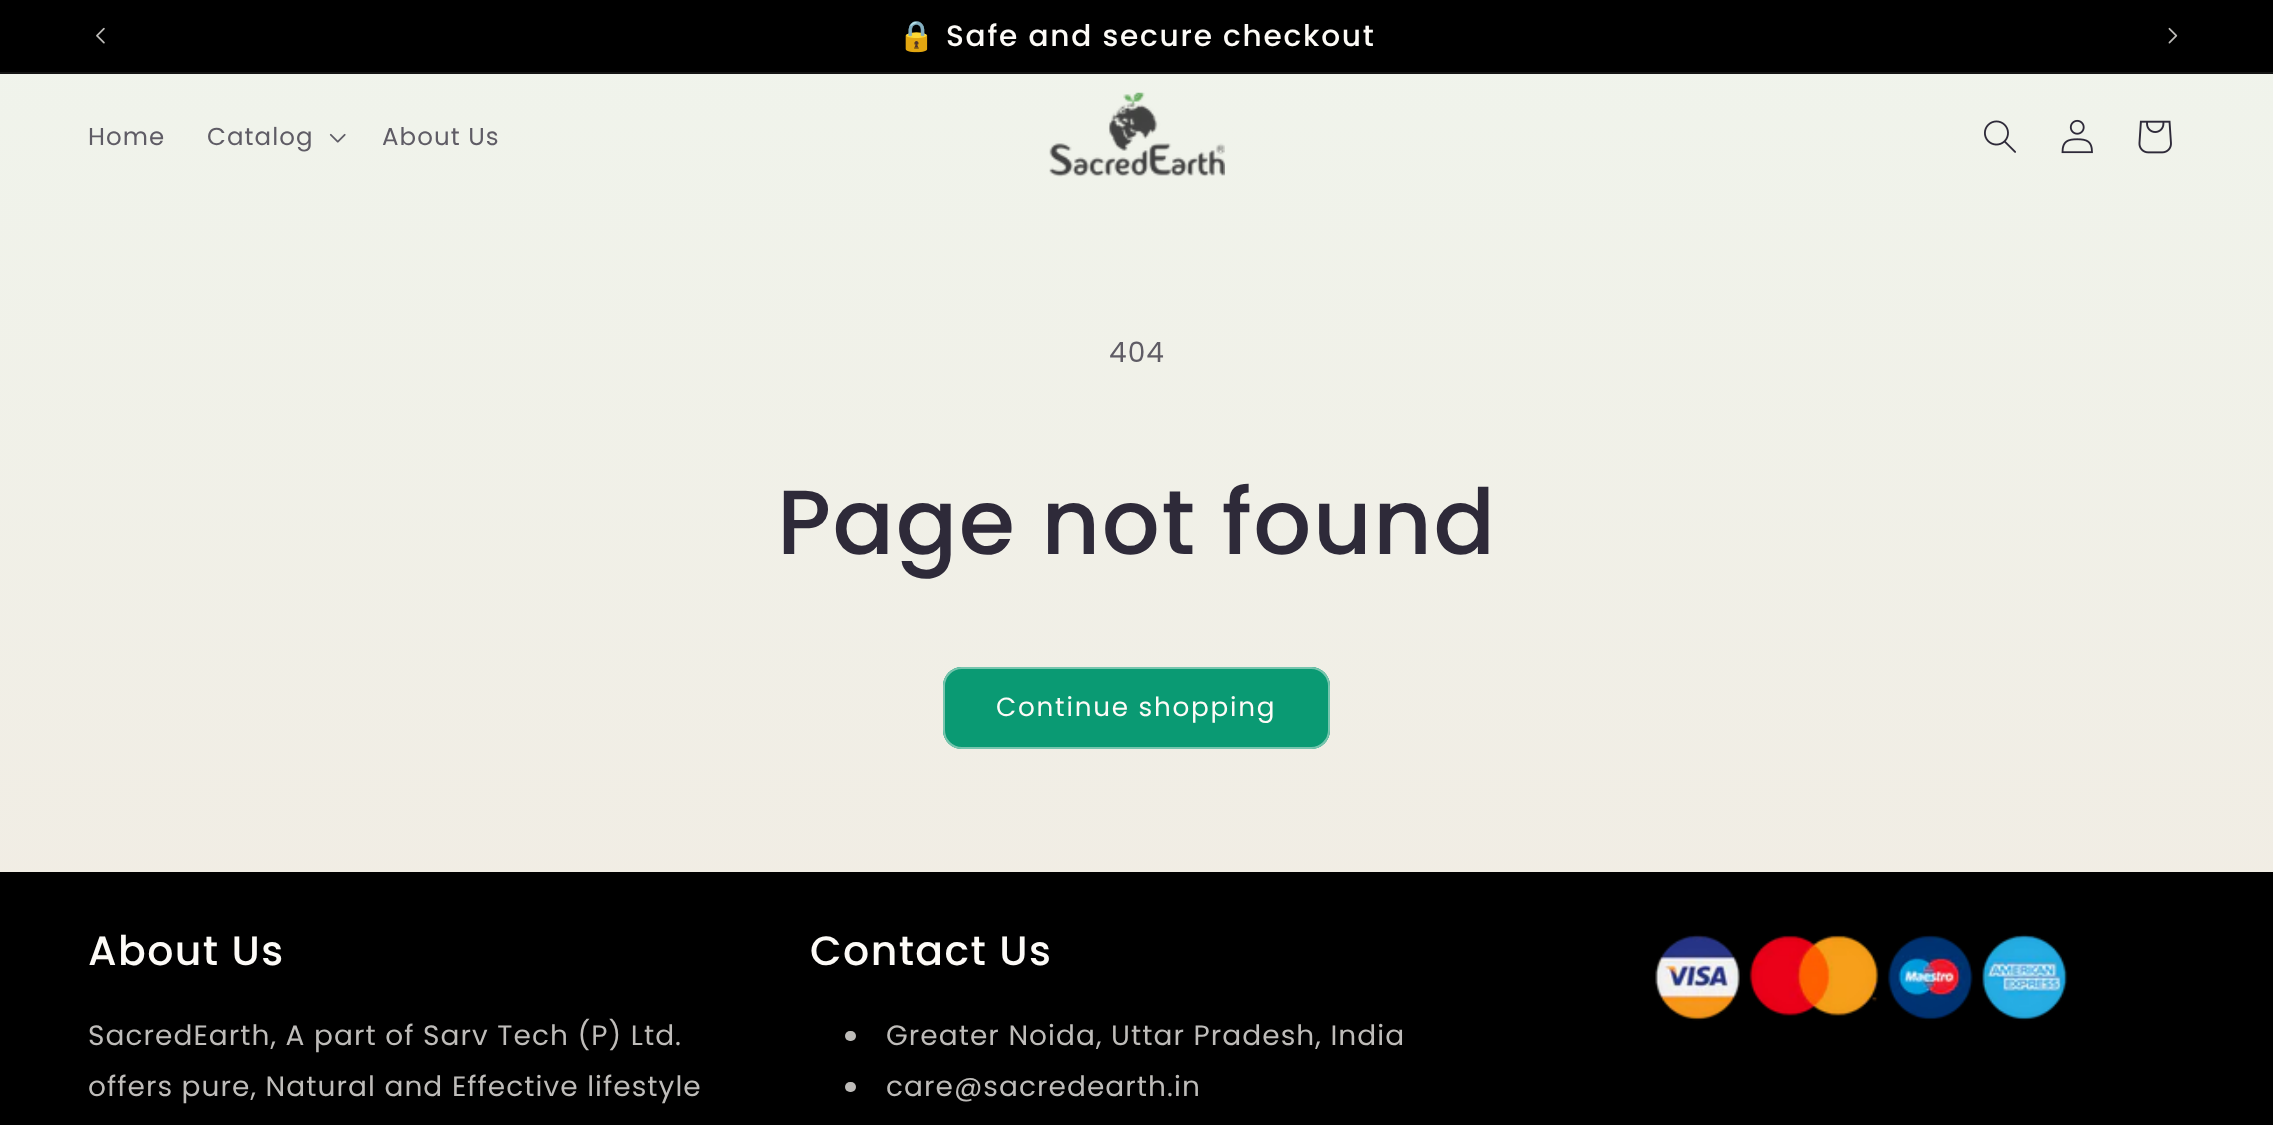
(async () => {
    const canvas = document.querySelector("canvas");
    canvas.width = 2273;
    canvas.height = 1125;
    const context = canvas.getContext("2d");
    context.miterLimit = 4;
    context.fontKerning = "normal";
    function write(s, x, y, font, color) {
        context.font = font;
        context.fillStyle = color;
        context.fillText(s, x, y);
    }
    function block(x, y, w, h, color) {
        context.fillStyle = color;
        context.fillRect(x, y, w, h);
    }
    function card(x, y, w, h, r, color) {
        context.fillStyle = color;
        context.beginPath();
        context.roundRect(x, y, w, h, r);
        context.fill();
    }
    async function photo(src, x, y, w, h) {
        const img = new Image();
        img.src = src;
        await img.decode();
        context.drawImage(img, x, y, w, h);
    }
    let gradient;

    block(0, 0, 2273, 1125, "rgb(255, 255, 255)");
    gradient = context.createLinearGradient(1137, 0, 1137, 1125);
    gradient.addColorStop(0, "rgb(240, 244, 236)");
    gradient.addColorStop(1, "rgb(241, 235, 226)");
    context.fillStyle = gradient;
    context.fillRect(0, 74, 2273, 798);
    block(0, 0, 2273, 72, "rgb(0, 0, 0)");
    block(0, 72, 2273, 2, "rgb(20, 20, 20)");
    await photo("media/1.png", 96, 27, 9, 17);
    context.letterSpacing = "1.75px";
    write("🔒", 898, 46, "29.6px Noto Color Emoji", "rgb(253, 251, 247)");
    write("Safe and secure checkout", 946, 46, "500 29.6px Poppins", "rgb(253, 251, 247)");
    await photo("media/2.png", 2168, 27, 10, 17);
    context.letterSpacing = "1.05px";
    write("Home", 88, 145, "24.5px Poppins", "rgb(95, 92, 101)");
    write("Catalog", 207, 145, "24.5px Poppins", "rgb(95, 92, 101)");
    await photo("media/3.png", 329, 133, 17, 10);
    write("About Us", 382, 145, "24.5px Poppins", "rgb(95, 92, 101)");
    await photo("media/4.png", 1049, 92, 176, 85);
    await photo("media/5.png", 1984, 120, 32, 33);
    await photo("media/6.png", 2061, 119, 32, 35);
    await photo("media/7.png", 2138, 120, 34, 34);
    write("404", 1109, 362, "28px Poppins", "rgb(95, 92, 101)");
    context.letterSpacing = "1.4px";
    write("Page not found", 777, 554, "500 91px Poppins", "rgb(46, 42, 57)");
    card(943, 667, 387, 82, 19, "rgb(10, 154, 115)");
    context.beginPath();
    context.roundRect(944, 668, 385, 80, 18);
    context.strokeStyle = "rgb(10, 154, 115)";
    context.lineWidth = 2;
    context.stroke();
    context.beginPath();
    context.roundRect(944, 668, 385, 80, 18);
    context.strokeStyle = "rgba(253, 251, 247, 0.45)";
    context.stroke();
    context.letterSpacing = "1.75px";
    write("Continue shopping", 996, 716, "26.25px Poppins", "rgb(253, 251, 247)");
    block(0, 872, 2273, 253, "rgb(0, 0, 0)");
    context.letterSpacing = "1.4px";
    write("About Us", 88, 965, "500 41px Poppins", "rgb(253, 251, 247)");
    context.letterSpacing = "1.05px";
    write("SacredEarth, A part of Sarv Tech (P) Ltd.", 88, 1045, "28px Poppins", "rgb(190, 188, 185)");
    write("offers pure, Natural and Effective lifestyle", 88, 1096, "28px Poppins", "rgb(190, 188, 185)");
    context.letterSpacing = "1.4px";
    write("Contact Us", 810, 965, "500 41px Poppins", "rgb(253, 251, 247)");
    card(845, 1031, 11, 10, 5, "rgb(190, 188, 185)");
    context.letterSpacing = "1.05px";
    write("Greater Noida, Uttar Pradesh, India", 886, 1045, "28px Poppins", "rgb(190, 188, 185)");
    card(845, 1082, 11, 10, 5, "rgb(190, 188, 185)");
    write("care@sacredearth.in", 886, 1096, "28px Poppins", "rgb(190, 188, 185)");
    await photo("media/8.png", 1655, 934, 413, 87);
})();
